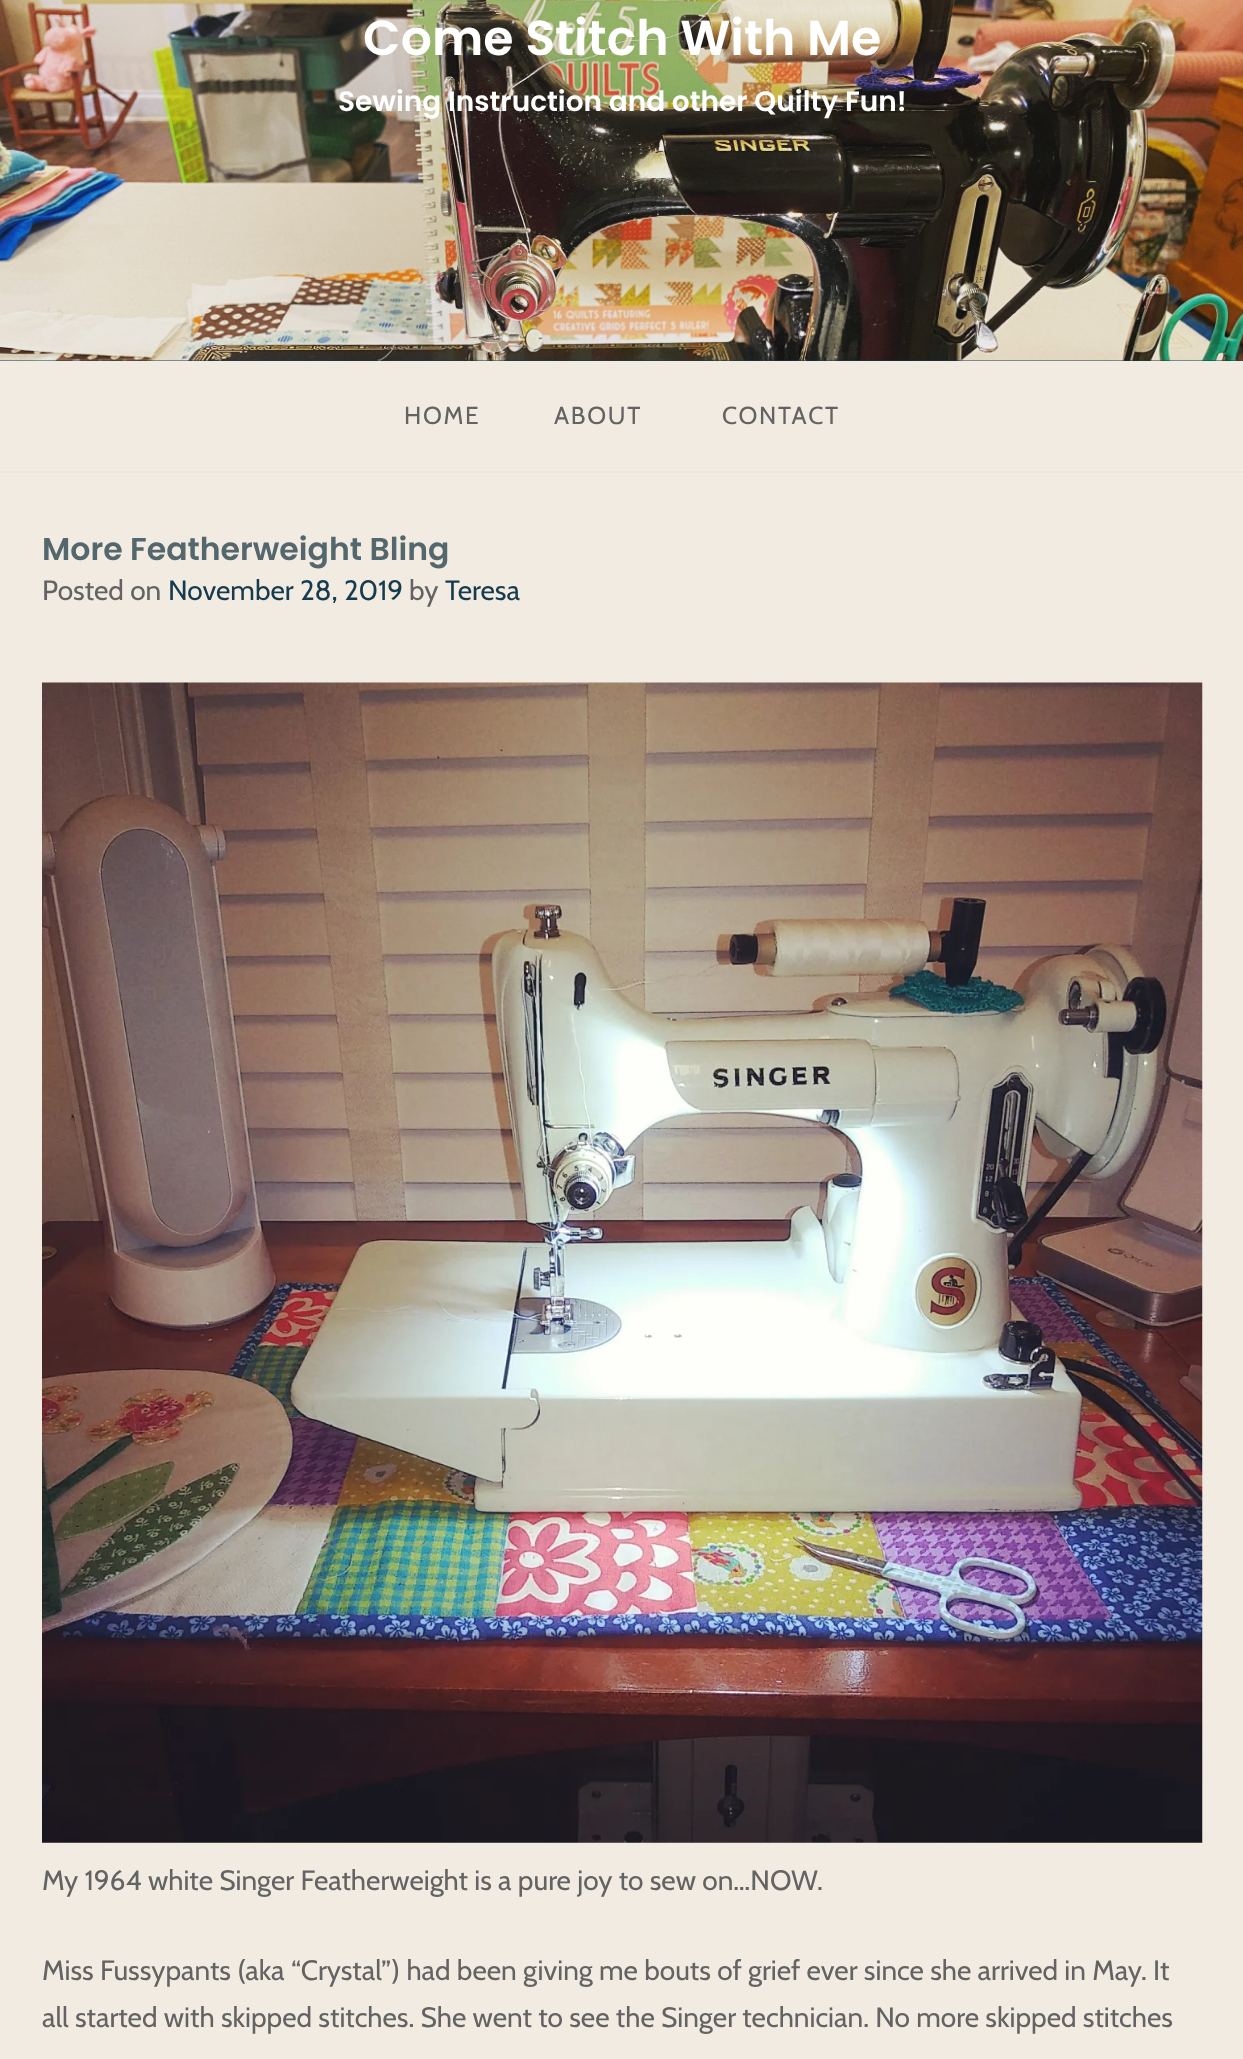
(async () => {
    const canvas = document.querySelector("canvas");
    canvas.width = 1243;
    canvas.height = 2059;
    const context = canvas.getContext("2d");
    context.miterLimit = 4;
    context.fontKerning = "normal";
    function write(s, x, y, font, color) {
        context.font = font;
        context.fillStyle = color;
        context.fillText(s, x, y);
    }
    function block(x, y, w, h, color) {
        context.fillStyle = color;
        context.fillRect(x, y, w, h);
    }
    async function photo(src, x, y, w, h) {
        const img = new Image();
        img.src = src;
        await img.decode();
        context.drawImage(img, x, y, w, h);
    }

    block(0, 0, 1243, 2059, "rgb(242, 235, 226)");
    block(0, 360, 1243, 1, "rgb(23, 59, 78)");
    await photo("media/1.png", 0, 0, 1243, 361);
    write("Come Stitch With Me", 363, 55, "600 49px Poppins", "rgb(255, 255, 255)");
    write("Sewing Instruction and other Quilty Fun!", 338, 111, "600 28px Poppins", "rgb(255, 255, 255)");
    block(0, 471, 1243, 2, "rgb(236, 231, 225)");
    context.letterSpacing = "1.75px";
    write("HOME", 404, 424, "24.5px Cabin", "rgb(99, 99, 99)");
    write("ABOUT", 554, 424, "24.5px Cabin", "rgb(99, 99, 99)");
    write("CONTACT", 722, 424, "24.5px Cabin", "rgb(99, 99, 99)");
    context.letterSpacing = "0px";
    write("More Featherweight Bling", 42, 560, "600 31.5px Poppins", "rgb(84, 103, 109)");
    write("Posted on", 42, 600, "28px Cabin", "rgb(99, 99, 99)");
    write("November 28, 2019", 168, 600, "28px Cabin", "rgb(23, 59, 78)");
    write("by", 409, 600, "28px Cabin", "rgb(99, 99, 99)");
    write("Teresa", 445, 600, "28px Cabin", "rgb(23, 59, 78)");
    await photo("media/2.png", 42, 682, 1161, 1161);
    write("My 1964 white Singer Featherweight is a pure joy to sew on…NOW.", 42, 1890, "28px Cabin", "rgb(99, 99, 99)");
    write("Miss Fussypants (aka “Crystal”) had been giving me bouts of grief ever since she arrived in May. It", 42, 1980, "28px Cabin", "rgb(99, 99, 99)");
    write("all started with skipped stitches. She went to see the Singer technician. No more skipped stitches", 42, 2027, "28px Cabin", "rgb(99, 99, 99)");
})();
